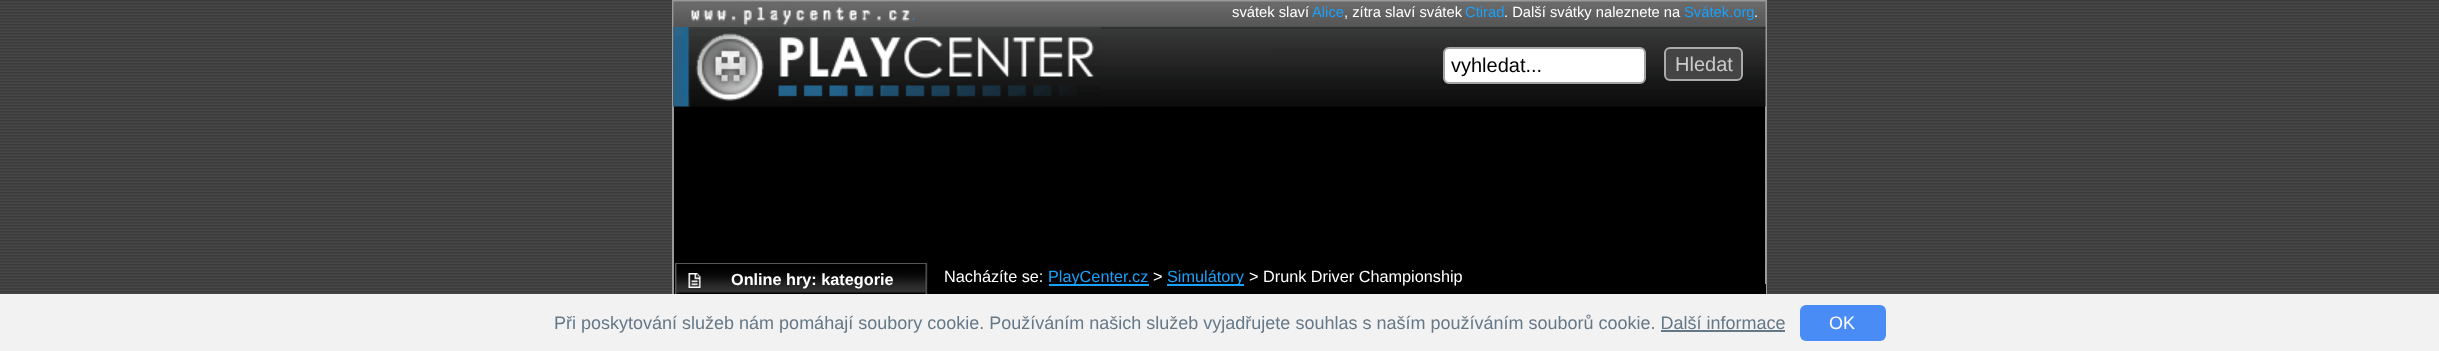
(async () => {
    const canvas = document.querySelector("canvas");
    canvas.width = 2439;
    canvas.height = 351;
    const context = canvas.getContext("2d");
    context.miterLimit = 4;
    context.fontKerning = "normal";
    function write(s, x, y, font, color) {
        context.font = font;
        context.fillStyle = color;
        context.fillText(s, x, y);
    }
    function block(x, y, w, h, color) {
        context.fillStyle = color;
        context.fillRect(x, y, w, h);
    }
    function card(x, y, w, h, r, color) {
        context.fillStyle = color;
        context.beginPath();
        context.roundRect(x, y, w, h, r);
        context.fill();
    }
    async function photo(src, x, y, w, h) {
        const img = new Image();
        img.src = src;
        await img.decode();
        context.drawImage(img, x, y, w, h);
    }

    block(0, 0, 2439, 351, "rgb(255, 255, 255)");
    await photo("media/1.png", 0, 0, 2439, 294);
    block(674, 106, 1091, 188, "rgb(0, 0, 0)");
    context.strokeStyle = "rgb(155, 154, 154)";
    context.lineWidth = 2;
    context.strokeRect(673, 1, 1093, 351);
    await photo("media/2.png", 673, 27, 1093, 80);
    await photo("media/3.png", 673, 1, 1093, 28);
    block(913, 18, 1, 2, "rgb(25, 161, 252)");
    await photo("media/4.png", 673, 1, 241, 26);
    write("svátek slaví", 1232, 17, "14.75px Liberation Sans", "rgb(255, 255, 255)");
    write("Alice", 1312, 17, "14.75px Liberation Sans", "rgb(25, 161, 252)");
    write(", zítra slaví svátek", 1344, 17, "14.75px Liberation Sans", "rgb(255, 255, 255)");
    write("Ctirad", 1465, 17, "14.75px Liberation Sans", "rgb(25, 161, 252)");
    write(". Další svátky naleznete na", 1504, 17, "14.75px Liberation Sans", "rgb(255, 255, 255)");
    write("Svátek.org", 1684, 17, "14.75px Liberation Sans", "rgb(25, 161, 252)");
    write(".", 1754, 17, "14.75px Liberation Sans", "rgb(255, 255, 255)");
    await photo("media/5.png", 673, 27, 428, 80);
    context.beginPath();
    context.roundRect(1444, 48, 201, 35, 5);
    context.fill();
    context.strokeStyle = "rgb(166, 164, 164)";
    context.stroke();
    write("vyhledat...", 1451, 72, "20px Liberation Sans", "rgb(0, 0, 0)");
    context.fillStyle = "rgb(68, 68, 68)";
    context.beginPath();
    context.roundRect(1665, 48, 77, 32, 5);
    context.fill();
    context.strokeStyle = "rgb(170, 170, 170)";
    context.stroke();
    write("Hledat", 1675, 71, "20px Liberation Sans", "rgb(204, 204, 204)");
    context.strokeStyle = "rgb(85, 85, 85)";
    context.strokeRect(676, 264, 250, 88);
    await photo("media/6.png", 676, 264, 252, 30);
    await photo("media/7.png", 688, 273, 13, 15);
    write("Online hry: kategorie", 731, 285, "bold 16.25px Liberation Sans", "rgb(255, 255, 255)");
    block(1765, 284, 1, 10, "rgb(0, 0, 0)");
    write("Nacházíte se:", 944, 282, "16.25px Liberation Sans", "rgb(255, 255, 255)");
    block(1049, 284, 100, 2, "rgb(25, 161, 252)");
    write("PlayCenter.cz", 1048, 282, "16.25px Liberation Sans", "rgb(25, 161, 252)");
    write(">", 1153, 282, "16.25px Liberation Sans", "rgb(255, 255, 255)");
    block(1167, 284, 77, 2, "rgb(25, 161, 252)");
    write("Simulátory", 1167, 282, "16.25px Liberation Sans", "rgb(25, 161, 252)");
    write("> Drunk Driver Championship", 1249, 282, "16.25px Liberation Sans", "rgb(255, 255, 255)");
    block(0, 294, 2439, 57, "rgb(242, 242, 242)");
    write("Při poskytování služeb nám pomáhají soubory cookie. Používáním našich služeb vyjadřujete souhlas s naším používáním souborů cookie. Další informace", 554, 329, "18px Liberation Sans", "rgb(101, 120, 136)");
    card(1800, 305, 86, 36, 6, "rgb(74, 140, 246)");
    write("OK", 1829, 329, "18px Liberation Sans", "rgb(255, 255, 255)");
    block(1661, 330, 124, 2, "rgb(101, 120, 136)");
})();
